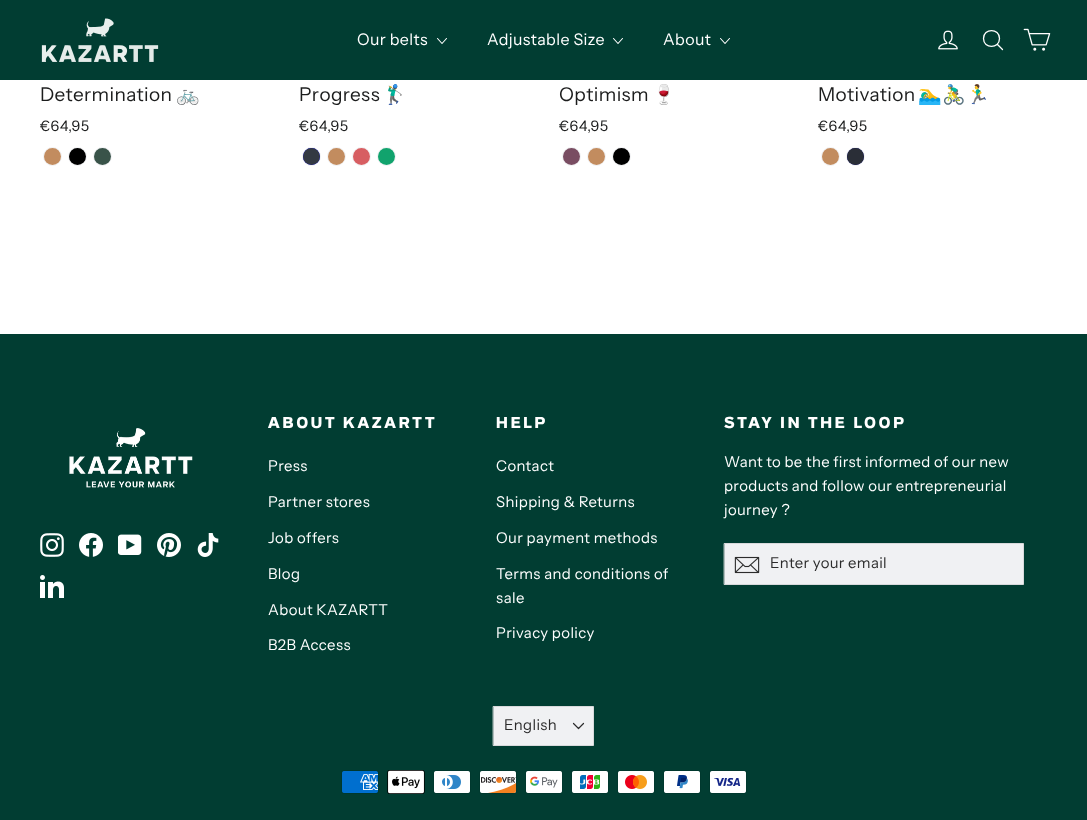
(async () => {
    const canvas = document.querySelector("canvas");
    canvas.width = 1087;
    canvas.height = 820;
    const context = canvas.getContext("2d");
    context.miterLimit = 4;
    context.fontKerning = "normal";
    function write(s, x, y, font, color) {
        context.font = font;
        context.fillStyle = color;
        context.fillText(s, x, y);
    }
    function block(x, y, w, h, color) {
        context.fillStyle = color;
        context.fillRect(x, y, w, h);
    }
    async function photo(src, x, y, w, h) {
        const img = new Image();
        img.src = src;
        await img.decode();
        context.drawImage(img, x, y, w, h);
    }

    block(0, 0, 1087, 820, "rgb(255, 255, 255)");
    block(0, 0, 1087, 80, "rgb(1, 61, 50)");
    await photo("media/1.png", 41, 18, 118, 44);
    context.letterSpacing = "0.4px";
    write("Our belts", 357, 45, "16px Instrument Sans", "rgb(255, 255, 255)");
    context.beginPath();
    context.moveTo(437.5, 38.5);
    context.lineTo(442, 43.5);
    context.lineTo(446.5, 38.5);
    context.strokeStyle = "rgb(255, 255, 255)";
    context.lineWidth = 1.1;
    context.lineCap = "round";
    context.lineJoin = "round";
    context.stroke();
    write("Adjustable Size", 487, 45, "16px Instrument Sans", "rgb(255, 255, 255)");
    context.beginPath();
    context.moveTo(613.5, 38.5);
    context.lineTo(618, 43.5);
    context.lineTo(622.5, 38.5);
    context.stroke();
    write("About", 663, 45, "16px Instrument Sans", "rgb(255, 255, 255)");
    context.beginPath();
    context.moveTo(720.5, 38.5);
    context.lineTo(725, 43.5);
    context.lineTo(729.5, 38.5);
    context.stroke();
    await photo("media/2.png", 938, 30, 20, 20);
    context.beginPath();
    context.moveTo(999.5, 38.5);
    context.bezierCurveTo(999.5, 49, 983.5, 49, 983.5, 38.5);
    context.bezierCurveTo(983.5, 28, 999.5, 28, 999.5, 38.5);
    context.closePath();
    context.moveTo(1002.5, 49.5);
    context.lineTo(997.5, 44.5);
    context.lineWidth = 1.3;
    context.stroke();
    await photo("media/3.png", 1023, 28, 28, 23);
    write("Determination", 40, 101, "19px Instrument Sans", "rgb(28, 29, 29)");
    write("🚲", 176, 101, "19px Noto Color Emoji", "rgb(28, 29, 29)");
    write("€64,95", 40, 131, "14.5px Instrument Sans", "rgb(28, 29, 29)");
    context.beginPath();
    context.arc(52.5, 156.5, 9, 0, Math.PI * 2);
    context.strokeStyle = "rgb(240, 241, 243)";
    context.lineWidth = 1;
    context.stroke();
    await photo("media/4.png", 44, 148, 17, 17);
    context.beginPath();
    context.arc(77.5, 156.5, 9, 0, Math.PI * 2);
    context.stroke();
    context.fillStyle = "rgb(0, 0, 0)";
    context.beginPath();
    context.arc(77.5, 156.5, 8.5, 0, Math.PI * 2);
    context.fill();
    context.beginPath();
    context.arc(102.5, 156.5, 9, 0, Math.PI * 2);
    context.stroke();
    await photo("media/5.png", 94, 148, 17, 17);
    write("Progress", 299, 101, "19px Instrument Sans", "rgb(28, 29, 29)");
    write("🏌‍♂", 383, 101, "19px Noto Color Emoji", "rgb(28, 29, 29)");
    write("€64,95", 299, 131, "14.5px Instrument Sans", "rgb(28, 29, 29)");
    context.beginPath();
    context.arc(311.5, 156.5, 9, 0, Math.PI * 2);
    context.stroke();
    context.fillStyle = "rgb(0, 0, 255)";
    context.beginPath();
    context.arc(311.5, 156.5, 8.5, 0, Math.PI * 2);
    context.fill();
    await photo("media/6.png", 303, 148, 17, 17);
    context.beginPath();
    context.arc(336.5, 156.5, 9, 0, Math.PI * 2);
    context.stroke();
    await photo("media/4.png", 328, 148, 17, 17);
    context.beginPath();
    context.arc(361.5, 156.5, 9, 0, Math.PI * 2);
    context.stroke();
    await photo("media/7.png", 353, 148, 17, 17);
    context.beginPath();
    context.arc(386.5, 156.5, 9, 0, Math.PI * 2);
    context.stroke();
    await photo("media/8.png", 378, 148, 17, 17);
    write("Optimism", 559, 101, "19px Instrument Sans", "rgb(28, 29, 29)");
    write("🍷", 652, 101, "19px Noto Color Emoji", "rgb(28, 29, 29)");
    write("€64,95", 559, 131, "14.5px Instrument Sans", "rgb(28, 29, 29)");
    context.beginPath();
    context.arc(571.5, 156.5, 9, 0, Math.PI * 2);
    context.stroke();
    await photo("media/9.png", 563, 148, 17, 17);
    context.beginPath();
    context.arc(596.5, 156.5, 9, 0, Math.PI * 2);
    context.stroke();
    await photo("media/4.png", 588, 148, 17, 17);
    context.beginPath();
    context.arc(621.5, 156.5, 9, 0, Math.PI * 2);
    context.stroke();
    context.fillStyle = "rgb(0, 0, 0)";
    context.beginPath();
    context.arc(621.5, 156.5, 8.5, 0, Math.PI * 2);
    context.fill();
    write("Motivation", 818, 101, "19px Instrument Sans", "rgb(28, 29, 29)");
    write("🏊‍♂🚴‍♂🏃‍♂", 918, 101, "19px Noto Color Emoji", "rgb(28, 29, 29)");
    write("€64,95", 818, 131, "14.5px Instrument Sans", "rgb(28, 29, 29)");
    context.beginPath();
    context.arc(830.5, 156.5, 9, 0, Math.PI * 2);
    context.stroke();
    await photo("media/4.png", 822, 148, 17, 17);
    context.beginPath();
    context.arc(855.5, 156.5, 9, 0, Math.PI * 2);
    context.stroke();
    context.fillStyle = "rgb(0, 0, 128)";
    context.beginPath();
    context.arc(855.5, 156.5, 8.5, 0, Math.PI * 2);
    context.fill();
    await photo("media/10.png", 847, 148, 17, 17);
    block(0, 334, 1087, 486, "rgb(1, 61, 50)");
    await photo("media/11.png", 69, 428, 124, 60);
    await photo("media/12.png", 40, 533, 24, 24);
    await photo("media/13.png", 79, 533, 24, 24);
    await photo("media/14.png", 118, 534, 24, 21);
    await photo("media/15.png", 157, 533, 24, 24);
    await photo("media/16.png", 197, 533, 22, 24);
    await photo("media/17.png", 40, 575, 24, 23);
    context.letterSpacing = "2.9px";
    write("ABOUT KAZARTT", 268, 428, "800 14.25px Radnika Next", "rgb(255, 255, 255)");
    context.letterSpacing = "0.4px";
    write("Press", 268, 471, "14.9px Instrument Sans", "rgb(255, 255, 255)");
    write("Partner stores", 268, 507, "14.9px Instrument Sans", "rgb(255, 255, 255)");
    write("Job offers", 268, 543, "14.9px Instrument Sans", "rgb(255, 255, 255)");
    write("Blog", 268, 579, "14.9px Instrument Sans", "rgb(255, 255, 255)");
    write("About KAZARTT", 268, 615, "14.9px Instrument Sans", "rgb(255, 255, 255)");
    write("B2B Access", 268, 650, "14.9px Instrument Sans", "rgb(255, 255, 255)");
    context.letterSpacing = "2.9px";
    write("HELP", 496, 428, "800 14.25px Radnika Next", "rgb(255, 255, 255)");
    context.letterSpacing = "0.4px";
    write("Contact", 496, 471, "14.9px Instrument Sans", "rgb(255, 255, 255)");
    write("Shipping & Returns", 496, 507, "14.9px Instrument Sans", "rgb(255, 255, 255)");
    write("Our payment methods", 496, 543, "14.9px Instrument Sans", "rgb(255, 255, 255)");
    write("Terms and conditions of", 496, 579, "14.9px Instrument Sans", "rgb(255, 255, 255)");
    write("sale", 496, 603, "14.9px Instrument Sans", "rgb(255, 255, 255)");
    write("Privacy policy", 496, 638, "14.9px Instrument Sans", "rgb(255, 255, 255)");
    context.letterSpacing = "2.9px";
    write("STAY IN THE LOOP", 724, 428, "800 14.25px Radnika Next", "rgb(255, 255, 255)");
    context.letterSpacing = "0.35px";
    write("Want to be the first informed of our new", 724, 467, "14.9px Instrument Sans", "rgb(255, 255, 255)");
    write("products and follow our entrepreneurial", 724, 491, "14.9px Instrument Sans", "rgb(255, 255, 255)");
    write("journey ?", 724, 515, "14.9px Instrument Sans", "rgb(255, 255, 255)");
    context.fillStyle = "rgb(240, 241, 243)";
    context.beginPath();
    context.rect(724.5, 543.5, 299, 41);
    context.fill();
    context.strokeStyle = "rgb(216, 217, 219)";
    context.lineJoin = "miter";
    context.stroke();
    await photo("media/18.png", 734, 556, 26, 18);
    write("Enter your email", 770, 568, "14.9px Instrument Sans", "rgb(44, 44, 44)");
    context.fillStyle = "rgb(240, 241, 243)";
    context.beginPath();
    context.rect(493.5, 706.5, 100, 39);
    context.fill();
    context.stroke();
    write("English", 504, 730, "14.9px Instrument Sans", "rgb(44, 44, 44)");
    context.beginPath();
    context.moveTo(573.5, 723.5);
    context.lineTo(578.5, 728.5);
    context.lineTo(583.5, 723.5);
    context.strokeStyle = "rgb(44, 44, 44)";
    context.lineWidth = 1.2;
    context.lineJoin = "round";
    context.stroke();
    await photo("media/19.png", 341, 770, 38, 24);
    await photo("media/20.png", 387, 770, 38, 24);
    await photo("media/21.png", 433, 770, 38, 24);
    await photo("media/22.png", 479, 770, 38, 24);
    await photo("media/23.png", 525, 770, 38, 24);
    await photo("media/24.png", 571, 770, 38, 24);
    await photo("media/25.png", 617, 770, 38, 24);
    await photo("media/26.png", 663, 770, 38, 24);
    await photo("media/27.png", 709, 770, 38, 24);
})();
